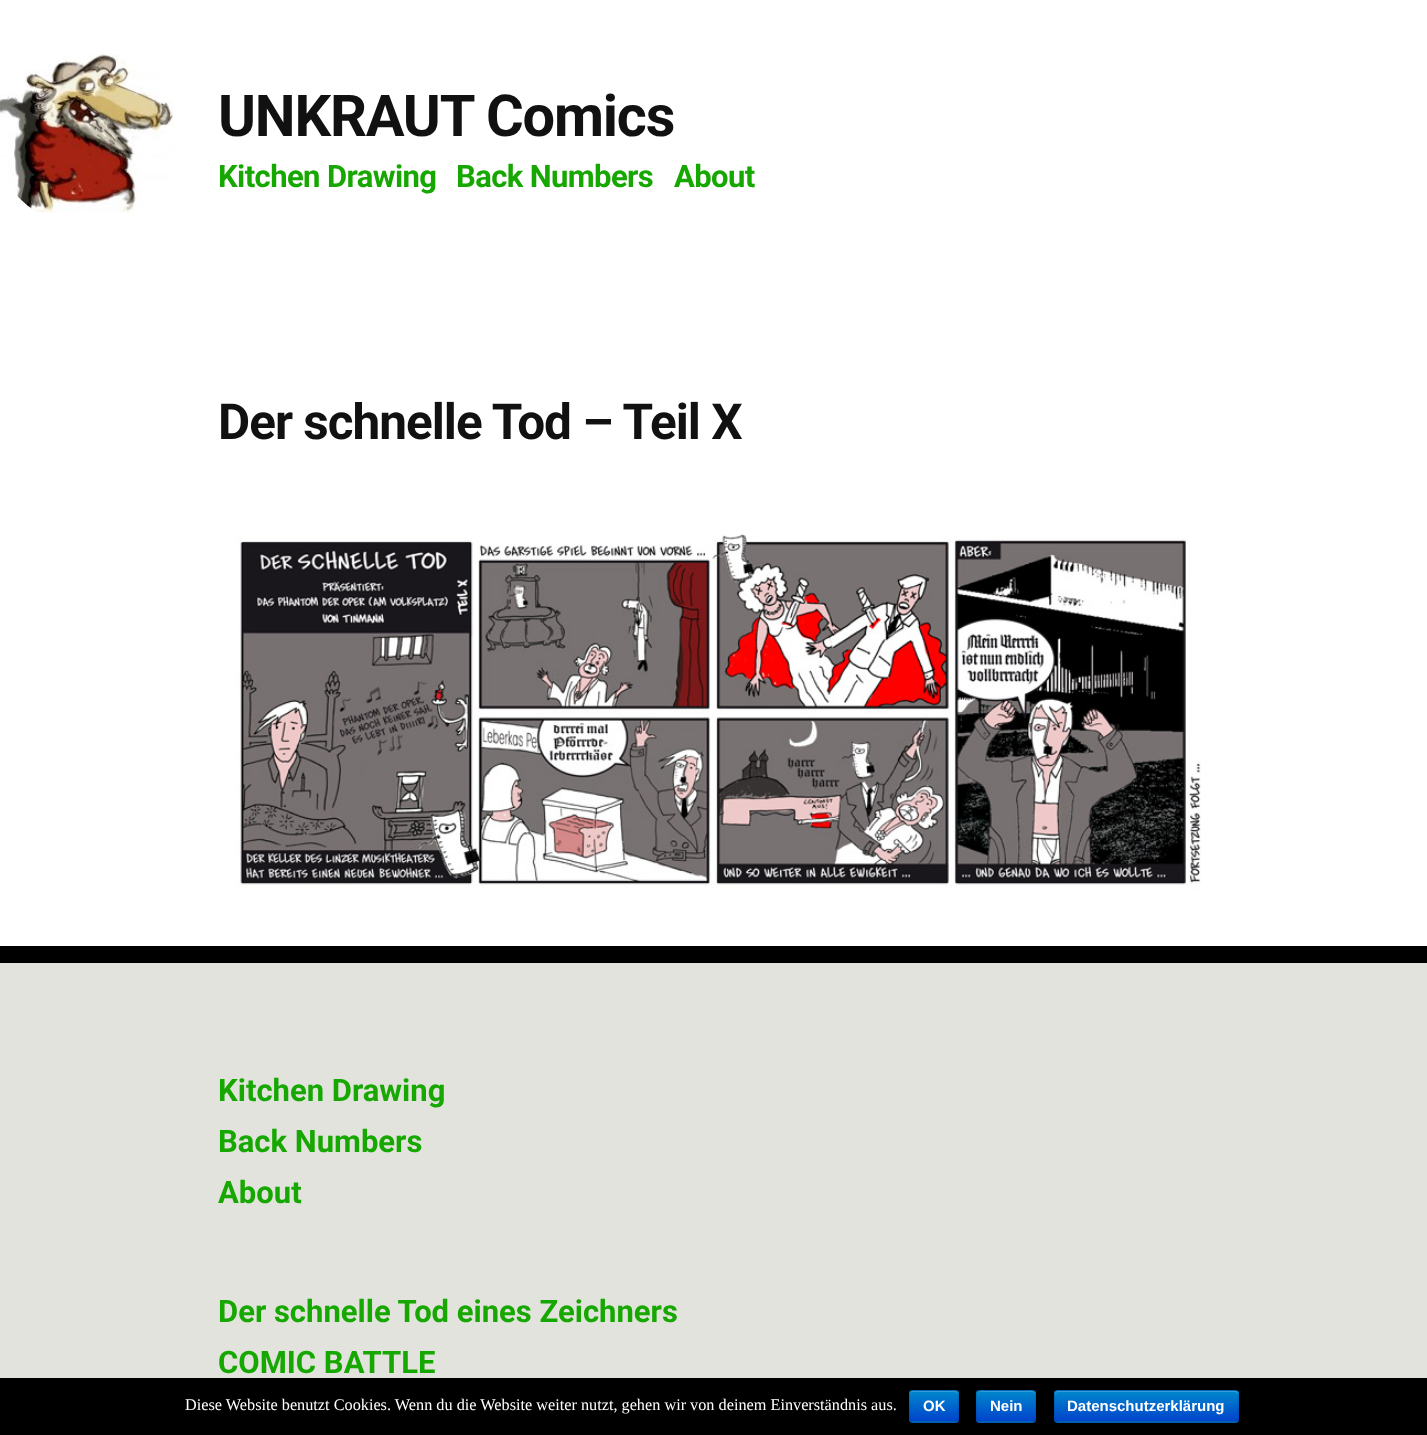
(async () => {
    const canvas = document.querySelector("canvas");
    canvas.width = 1427;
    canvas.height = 1435;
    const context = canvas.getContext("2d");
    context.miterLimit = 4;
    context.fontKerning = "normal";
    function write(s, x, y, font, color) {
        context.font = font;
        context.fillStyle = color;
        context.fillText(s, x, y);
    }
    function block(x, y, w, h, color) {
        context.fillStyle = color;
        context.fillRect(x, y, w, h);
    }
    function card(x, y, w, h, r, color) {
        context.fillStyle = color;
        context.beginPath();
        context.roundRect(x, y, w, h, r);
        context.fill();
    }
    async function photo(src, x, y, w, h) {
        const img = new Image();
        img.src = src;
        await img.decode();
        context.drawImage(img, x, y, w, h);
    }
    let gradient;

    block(0, 0, 1427, 1435, "rgb(255, 255, 255)");
    await photo("media/1.png", 0, 54, 174, 159);
    context.letterSpacing = "-1.2px";
    write("UNKRAUT Comics", 218, 136, "bold 57.75px Roboto", "rgb(17, 17, 17)");
    context.letterSpacing = "-0.6px";
    write("Kitchen Drawing", 218, 187, "bold 31px Roboto", "rgb(22, 168, 0)");
    write("Back Numbers", 456, 187, "bold 31px Roboto", "rgb(22, 168, 0)");
    write("About", 674, 187, "bold 31px Roboto", "rgb(22, 168, 0)");
    context.letterSpacing = "-1px";
    write("Der schnelle Tod – Teil X", 218, 439, "bold 49.5px Roboto", "rgb(17, 17, 17)");
    await photo("media/2.png", 236, 534, 965, 355);
    block(0, 963, 1427, 415, "rgb(227, 227, 222)");
    block(0, 946, 1427, 17, "rgb(0, 0, 0)");
    context.letterSpacing = "0px";
    write("Kitchen Drawing", 218, 1101, "bold 31px Roboto", "rgb(22, 168, 0)");
    write("Back Numbers", 218, 1152, "bold 31px Roboto", "rgb(22, 168, 0)");
    write("About", 218, 1203, "bold 31px Roboto", "rgb(22, 168, 0)");
    write("Der schnelle Tod eines Zeichners", 218, 1322, "bold 31px Roboto", "rgb(22, 168, 0)");
    write("COMIC BATTLE", 218, 1373, "bold 31px Roboto", "rgb(22, 168, 0)");
    block(0, 1378, 1427, 57, "rgb(0, 0, 0)");
    write("Diese Website benutzt Cookies. Wenn du die Website weiter nutzt, gehen wir von deinem Einverständnis aus.", 185, 1410, "16.25px Liberation Serif", "rgb(255, 255, 255)");
    card(909, 1390, 50, 33, 4, "rgb(0, 109, 204)");
    context.save();
    context.beginPath();
    context.roundRect(909, 1390, 50, 33, 4);
    context.clip();
    gradient = context.createLinearGradient(934, 1391, 934, 1421);
    gradient.addColorStop(0, "rgb(0, 136, 204)");
    gradient.addColorStop(1, "rgb(0, 68, 204)");
    context.fillStyle = gradient;
    context.fillRect(909, 1391, 50, 30);
    context.restore();
    context.fillStyle = "rgba(255, 255, 255, 0.2)";
    context.beginPath();
    context.moveTo(912, 1392);
    context.lineTo(955, 1392);
    context.bezierCurveTo(956, 1392, 958, 1394, 958, 1395);
    context.bezierCurveTo(958, 1389, 953, 1391, 948, 1391);
    context.lineTo(920, 1391);
    context.bezierCurveTo(915, 1391, 910, 1389, 910, 1395);
    context.bezierCurveTo(910, 1394, 911, 1392, 912, 1392);
    context.closePath();
    context.fill();
    context.beginPath();
    context.moveTo(957, 1421);
    context.lineTo(955.5, 1422);
    context.lineTo(912, 1422);
    context.lineTo(910.5, 1421);
    context.strokeStyle = "rgba(0, 0, 0, 0.25)";
    context.lineWidth = 1.2;
    context.stroke();
    context.beginPath();
    context.moveTo(910.5, 1421);
    context.bezierCurveTo(908, 1419, 909.5, 1409, 909.5, 1406);
    context.bezierCurveTo(909.5, 1391, 906, 1390.5, 919.5, 1390.5);
    context.lineTo(948, 1390.5);
    context.bezierCurveTo(961.5, 1390.5, 958, 1391, 958, 1406);
    context.bezierCurveTo(958, 1409, 959.5, 1419, 957, 1421);
    context.strokeStyle = "rgba(0, 0, 0, 0.1)";
    context.stroke();
    write("OK", 923, 1411, "bold 15px Liberation Sans", "rgb(255, 255, 255)");
    card(976, 1390, 60, 33, 4, "rgb(0, 109, 204)");
    context.save();
    context.beginPath();
    context.roundRect(976, 1390, 60, 33, 4);
    context.clip();
    gradient = context.createLinearGradient(1006, 1391, 1006, 1421);
    gradient.addColorStop(0, "rgb(0, 136, 204)");
    gradient.addColorStop(1, "rgb(0, 68, 204)");
    context.fillStyle = gradient;
    context.fillRect(976, 1391, 60, 30);
    context.restore();
    context.fillStyle = "rgb(51, 159, 214)";
    context.beginPath();
    context.moveTo(980, 1392);
    context.lineTo(1032, 1392);
    context.bezierCurveTo(1034, 1392, 1035, 1394, 1035, 1395);
    context.bezierCurveTo(1035, 1389, 1029, 1391, 1024, 1391);
    context.lineTo(989, 1391);
    context.bezierCurveTo(984, 1391, 978, 1389, 978, 1395);
    context.bezierCurveTo(978, 1394, 979, 1392, 980, 1392);
    context.closePath();
    context.fill();
    context.beginPath();
    context.moveTo(1034.5, 1421);
    context.lineTo(1033, 1422);
    context.lineTo(979.5, 1422);
    context.lineTo(978, 1421);
    context.strokeStyle = "rgba(0, 0, 0, 0.25)";
    context.stroke();
    context.beginPath();
    context.moveTo(978, 1421);
    context.bezierCurveTo(975.5, 1419, 977, 1409, 977, 1406);
    context.bezierCurveTo(977, 1390, 973.5, 1390.5, 989, 1390.5);
    context.lineTo(1024, 1390.5);
    context.bezierCurveTo(1039, 1390.5, 1035.5, 1390, 1035.5, 1406);
    context.bezierCurveTo(1035.5, 1409, 1037, 1419, 1034.5, 1421);
    context.strokeStyle = "rgba(0, 0, 0, 0.1)";
    context.stroke();
    write("Nein", 990, 1411, "bold 15px Liberation Sans", "rgb(255, 255, 255)");
    card(1054, 1390, 185, 33, 4, "rgb(0, 109, 204)");
    context.save();
    context.beginPath();
    context.roundRect(1054, 1390, 185, 33, 4);
    context.clip();
    gradient = context.createLinearGradient(1146, 1391, 1146, 1421);
    gradient.addColorStop(0, "rgb(0, 136, 204)");
    gradient.addColorStop(1, "rgb(0, 68, 204)");
    context.fillStyle = gradient;
    context.fillRect(1054, 1391, 185, 30);
    context.restore();
    context.fillStyle = "rgba(255, 255, 255, 0.2)";
    context.beginPath();
    context.moveTo(1058, 1392);
    context.lineTo(1235, 1392);
    context.bezierCurveTo(1236, 1392, 1238, 1394, 1238, 1395);
    context.lineTo(1238, 1394);
    context.bezierCurveTo(1238, 1392, 1237, 1391, 1236, 1391);
    context.lineTo(1058, 1391);
    context.bezierCurveTo(1056, 1391, 1055, 1392, 1055, 1394);
    context.lineTo(1055, 1395);
    context.bezierCurveTo(1055, 1394, 1056, 1392, 1058, 1392);
    context.closePath();
    context.fill();
    context.beginPath();
    context.moveTo(1237, 1421);
    context.lineTo(1235, 1422);
    context.lineTo(1057.5, 1422);
    context.lineTo(1055.5, 1421);
    context.strokeStyle = "rgba(0, 0, 0, 0.25)";
    context.stroke();
    context.beginPath();
    context.moveTo(1055.5, 1421);
    context.bezierCurveTo(1053, 1419, 1054.5, 1409, 1054.5, 1406);
    context.lineTo(1054.5, 1398);
    context.bezierCurveTo(1054.5, 1395.5, 1053.5, 1390.5, 1057.5, 1390.5);
    context.lineTo(1235, 1390.5);
    context.bezierCurveTo(1239, 1390.5, 1238, 1395.5, 1238, 1398);
    context.lineTo(1238, 1406);
    context.bezierCurveTo(1238, 1409, 1239.5, 1419, 1237, 1421);
    context.strokeStyle = "rgba(0, 0, 0, 0.1)";
    context.stroke();
    write("Datenschutzerklärung", 1067, 1411, "bold 15px Liberation Sans", "rgb(255, 255, 255)");
})();
